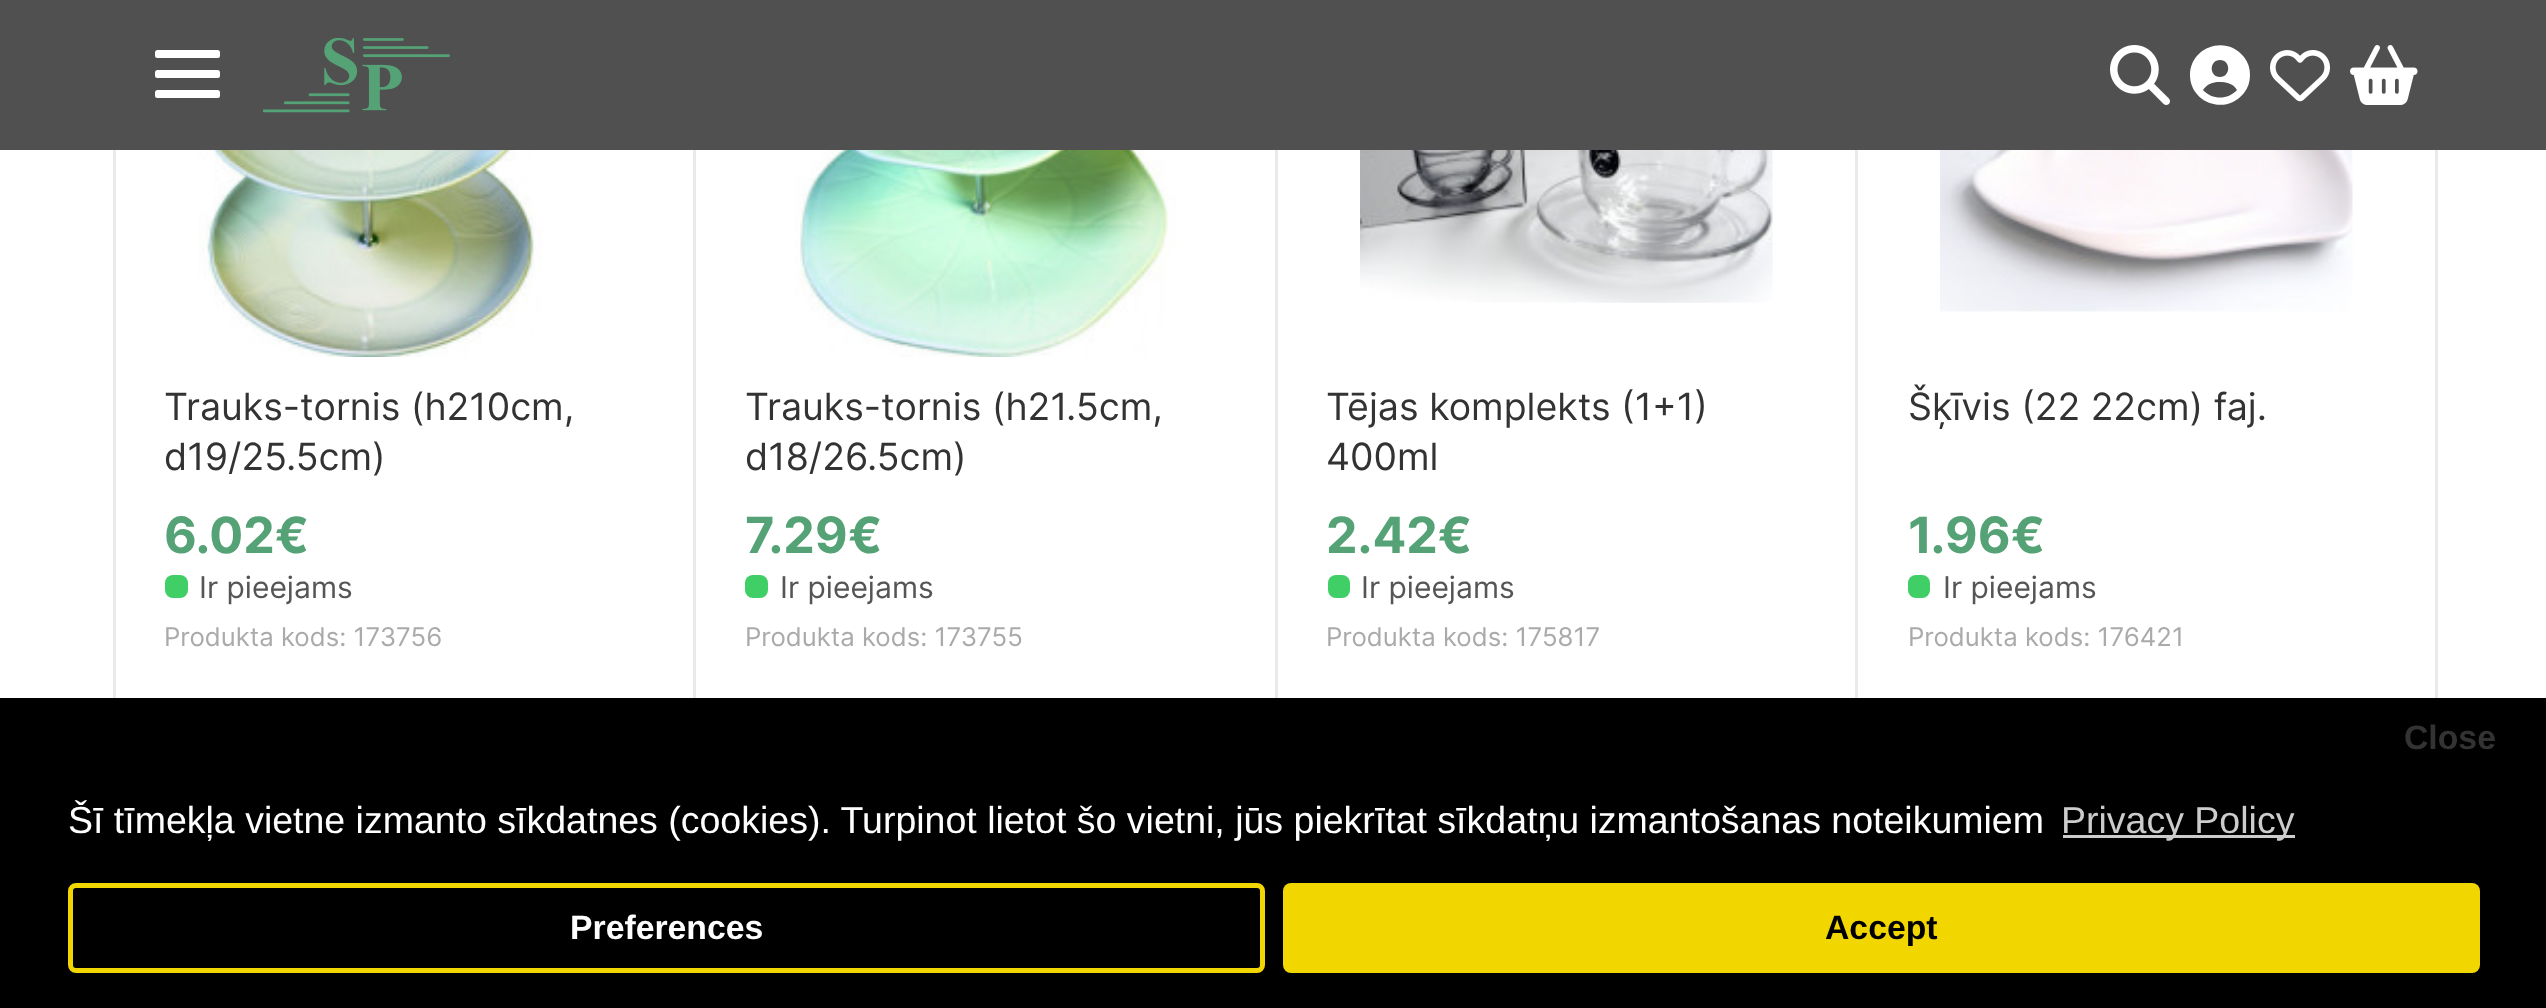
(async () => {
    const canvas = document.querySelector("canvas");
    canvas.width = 2546;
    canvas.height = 1008;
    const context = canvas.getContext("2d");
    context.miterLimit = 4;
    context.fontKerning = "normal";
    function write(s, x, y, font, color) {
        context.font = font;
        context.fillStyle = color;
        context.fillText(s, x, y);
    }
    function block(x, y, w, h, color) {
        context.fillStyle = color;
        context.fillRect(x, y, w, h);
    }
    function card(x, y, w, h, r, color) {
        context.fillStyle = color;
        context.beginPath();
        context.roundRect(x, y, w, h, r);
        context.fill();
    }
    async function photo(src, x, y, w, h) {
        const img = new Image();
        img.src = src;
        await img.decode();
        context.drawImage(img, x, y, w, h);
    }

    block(0, 0, 2546, 1008, "rgb(255, 255, 255)");
    block(0, 0, 2546, 150, "rgb(80, 80, 80)");
    card(155, 50, 65, 8, 2.5, "rgb(255, 255, 255)");
    card(155, 70, 65, 8, 2.5, "rgb(255, 255, 255)");
    card(155, 90, 65, 8, 2.5, "rgb(255, 255, 255)");
    await photo("media/1.png", 263, 38, 187, 75);
    await photo("media/2.png", 2110, 45, 60, 60);
    context.beginPath();
    context.moveTo(2237, 90);
    context.bezierCurveTo(2233, 83, 2226, 82, 2219, 82);
    context.bezierCurveTo(2213, 82, 2207, 84, 2203, 90);
    context.bezierCurveTo(2212, 100, 2228, 100, 2237, 90);
    context.closePath();
    context.moveTo(2190, 75);
    context.bezierCurveTo(2190, 47, 2226, 34, 2244, 57);
    context.bezierCurveTo(2248, 62, 2250, 68, 2250, 75);
    context.bezierCurveTo(2250, 82, 2248, 88, 2244, 93);
    context.bezierCurveTo(2226, 116, 2190, 103, 2190, 75);
    context.closePath();
    context.moveTo(2220, 77);
    context.bezierCurveTo(2231, 77, 2231, 60, 2220, 60);
    context.bezierCurveTo(2209, 60, 2209, 77, 2220, 77);
    context.closePath();
    context.fill();
    await photo("media/3.png", 2270, 50, 60, 52);
    await photo("media/4.png", 2350, 45, 68, 60);
    block(113, 150, 3, 548, "rgb(233, 234, 236)");
    await photo("media/5.png", 198, 150, 345, 207);
    write("Trauks-tornis (h210cm,", 164, 420, "37.5px Inter", "rgb(51, 51, 51)");
    write("d19/25.5cm)", 164, 470, "37.5px Inter", "rgb(51, 51, 51)");
    write("6.02€", 164, 553, "bold 50px Inter", "rgb(84, 162, 117)");
    card(165, 575, 23, 23, 8, "rgb(64, 206, 102)");
    write("Ir pieejams", 199, 598, "30px Inter", "rgb(85, 85, 85)");
    write("Produkta kods: 173756", 164, 646, "25.75px Inter", "rgb(170, 170, 170)");
    block(693, 150, 3, 548, "rgb(233, 234, 236)");
    await photo("media/6.png", 795, 150, 382, 207);
    write("Trauks-tornis (h21.5cm,", 745, 420, "37.5px Inter", "rgb(51, 51, 51)");
    write("d18/26.5cm)", 745, 470, "37.5px Inter", "rgb(51, 51, 51)");
    write("7.29€", 745, 553, "bold 50px Inter", "rgb(84, 162, 117)");
    card(745, 575, 23, 23, 8, "rgb(64, 206, 102)");
    write("Ir pieejams", 780, 598, "30px Inter", "rgb(85, 85, 85)");
    write("Produkta kods: 173755", 745, 646, "25.75px Inter", "rgb(170, 170, 170)");
    block(1275, 150, 3, 548, "rgb(233, 234, 236)");
    await photo("media/7.png", 1360, 150, 413, 153);
    write("Tējas komplekts (1+1)", 1326, 420, "37.5px Inter", "rgb(51, 51, 51)");
    write("400ml", 1326, 470, "37.5px Inter", "rgb(51, 51, 51)");
    write("2.42€", 1326, 553, "bold 50px Inter", "rgb(84, 162, 117)");
    card(1328, 575, 22, 23, 8, "rgb(64, 206, 102)");
    write("Ir pieejams", 1361, 598, "30px Inter", "rgb(85, 85, 85)");
    write("Produkta kods: 175817", 1326, 646, "25.75px Inter", "rgb(170, 170, 170)");
    block(2435, 150, 3, 548, "rgb(233, 234, 236)");
    block(1855, 150, 3, 548, "rgb(233, 234, 236)");
    await photo("media/8.png", 1940, 150, 413, 162);
    write("Šķīvis (22 22cm) faj.", 1908, 420, "37.5px Inter", "rgb(51, 51, 51)");
    write("1.96€", 1908, 553, "bold 50px Inter", "rgb(84, 162, 117)");
    card(1908, 575, 22, 23, 8, "rgb(64, 206, 102)");
    write("Ir pieejams", 1943, 598, "30px Inter", "rgb(85, 85, 85)");
    write("Produkta kods: 176421", 1908, 646, "25.75px Inter", "rgb(170, 170, 170)");
    block(0, 698, 2546, 310, "rgb(0, 0, 0)");
    write("Close", 2404, 749, "bold 33.75px Liberation Sans", "rgb(51, 51, 51)");
    context.beginPath();
    context.roundRect(70.5, 885.5, 1192, 85, 5.5);
    context.strokeStyle = "rgb(241, 214, 0)";
    context.lineWidth = 5;
    context.stroke();
    write("Preferences", 570, 939, "bold 33.75px Liberation Sans", "rgb(255, 255, 255)");
    card(1283, 883, 1197, 90, 8, "rgb(241, 214, 0)");
    write("Accept", 1825, 939, "bold 33.75px Liberation Sans", "rgb(0, 0, 0)");
    write("Šī tīmekļa vietne izmanto sīkdatnes (cookies). Turpinot lietot šo vietni, jūs piekrītat sīkdatņu izmantošanas noteikumiem", 68, 833, "37.5px Liberation Sans", "rgb(255, 255, 255)");
    block(2063, 835, 232, 3, "rgb(204, 204, 204)");
    write("Privacy Policy", 2061, 833, "37.5px Liberation Sans", "rgb(204, 204, 204)");
})();
